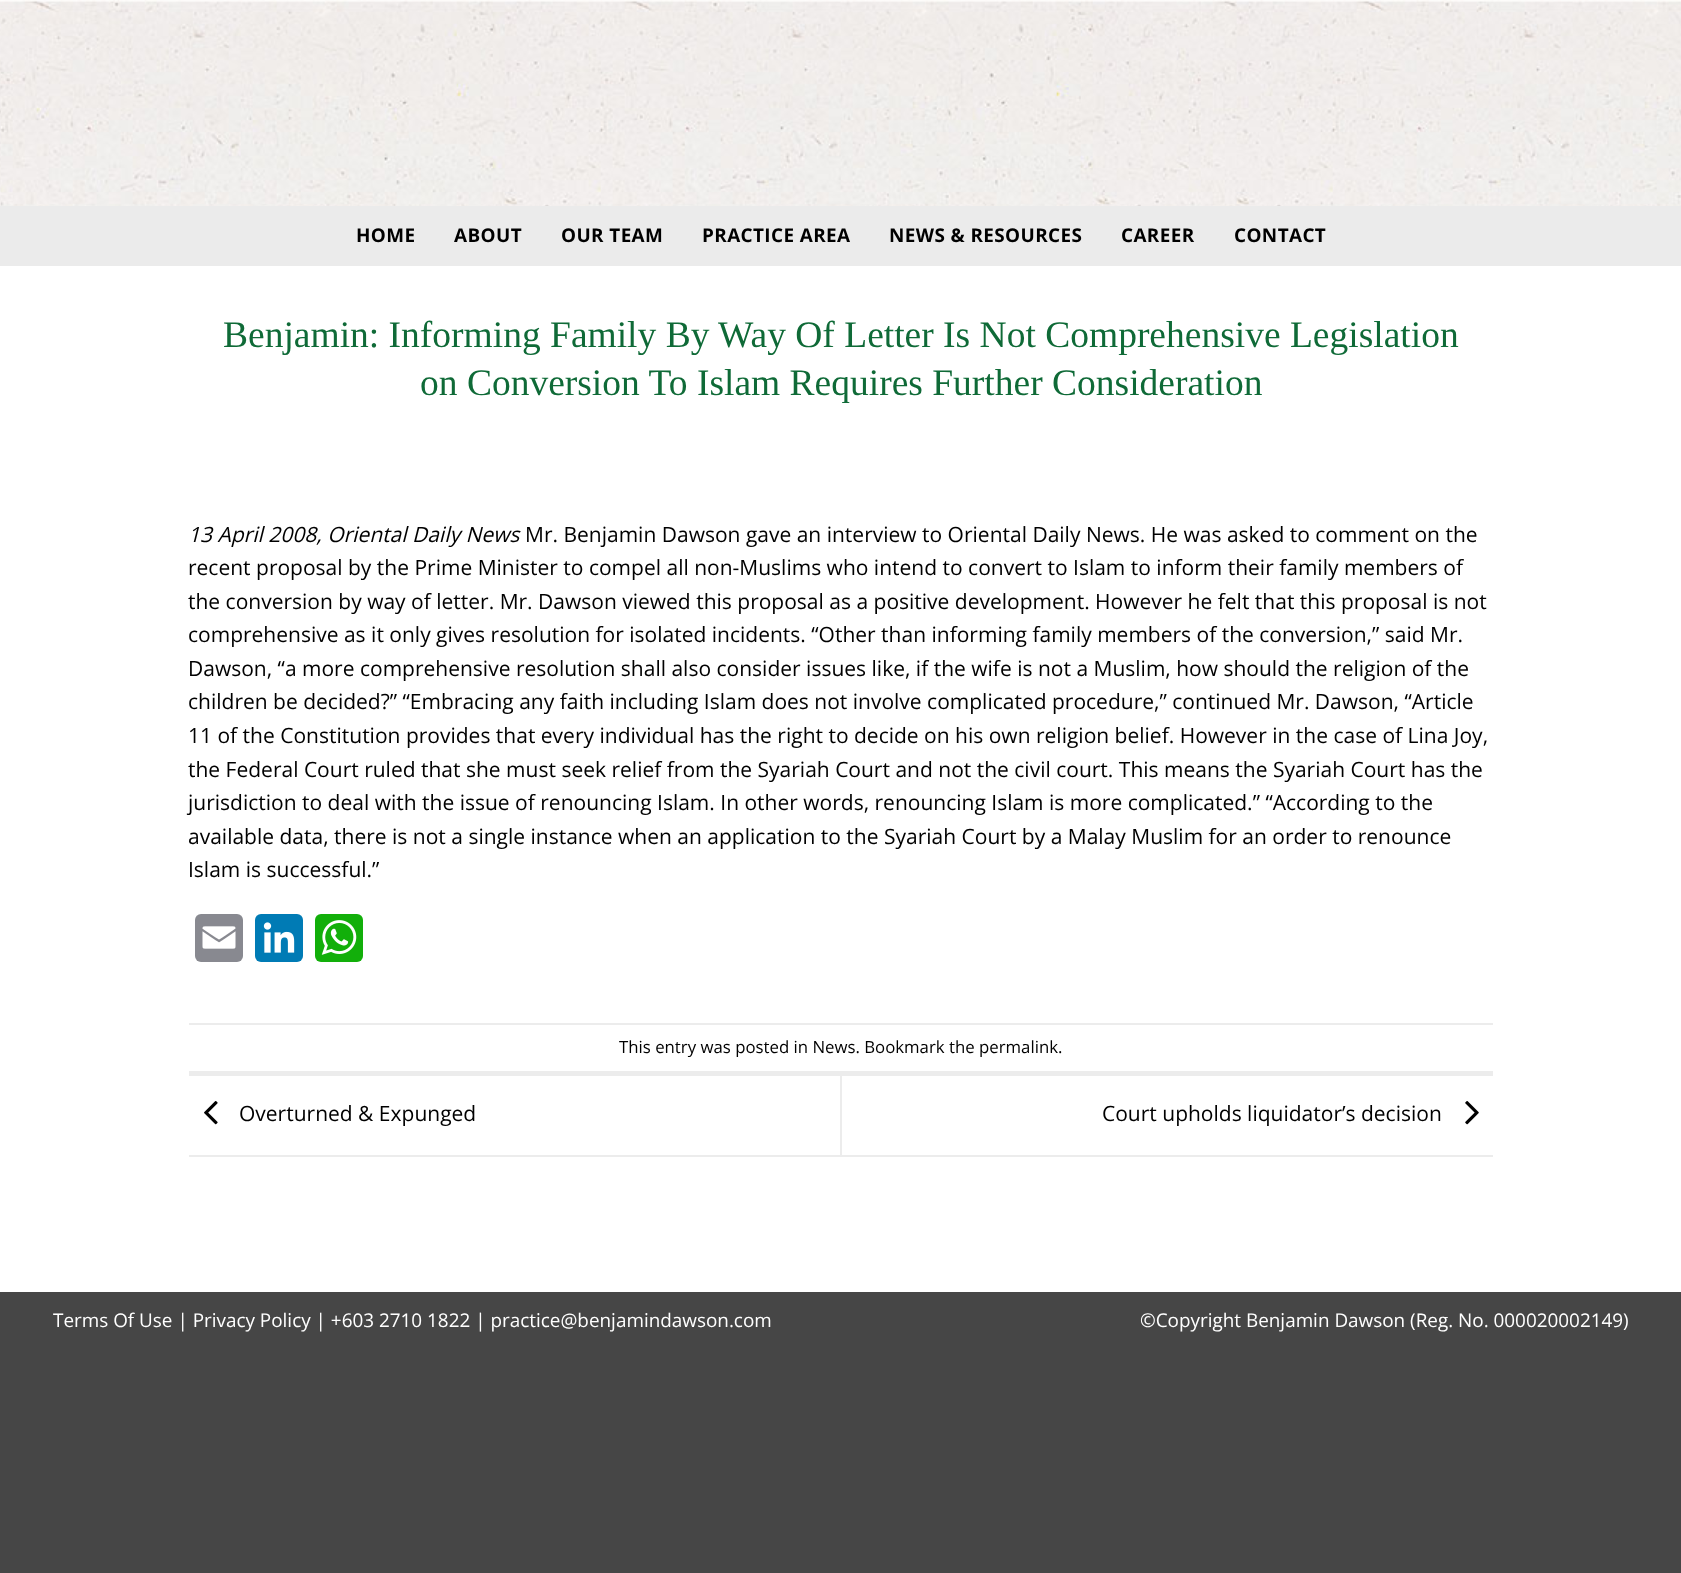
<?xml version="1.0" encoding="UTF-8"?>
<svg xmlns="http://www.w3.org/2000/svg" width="1681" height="1573">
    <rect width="100%" height="100%" fill="#464646"/>
    <rect x="0" y="266" width="1681" height="1026" fill="#FFFFFF"/>
    <image x="0" y="0" width="1681" height="206" href="img_01.png"/>
    <rect x="0" y="206" width="1681" height="60" fill="#EBEBEB"/>
    <text x="356" y="242" font-family="Open Sans" font-size="18.9" font-weight="700" letter-spacing="0.4" fill="#000000">HOME</text>
    <text x="454" y="242" font-family="Open Sans" font-size="18.9" font-weight="700" letter-spacing="0.4" fill="#000000">ABOUT</text>
    <text x="561" y="242" font-family="Open Sans" font-size="18.9" font-weight="700" letter-spacing="0.4" fill="#000000">OUR TEAM</text>
    <text x="702" y="242" font-family="Open Sans" font-size="18.9" font-weight="700" letter-spacing="0.4" fill="#000000">PRACTICE AREA</text>
    <text x="889" y="242" font-family="Open Sans" font-size="18.9" font-weight="700" letter-spacing="0.4" fill="#000000">NEWS &amp; RESOURCES</text>
    <text x="1121" y="242" font-family="Open Sans" font-size="18.9" font-weight="700" letter-spacing="0.4" fill="#000000">CAREER</text>
    <text x="1234" y="242" font-family="Open Sans" font-size="18.9" font-weight="700" letter-spacing="0.4" fill="#000000">CONTACT</text>
    <text x="223" y="347" font-family="Liberation Serif" font-size="37.5" fill="#0F6A37">Benjamin: Informing Family By Way Of Letter Is Not Comprehensive Legislation</text>
    <text x="420" y="395" font-family="Liberation Serif" font-size="37.5" fill="#0F6A37">on Conversion To Islam Requires Further Consideration</text>
    <text x="188" y="542" font-family="Open Sans" font-size="21" font-style="italic" fill="#000000">13 April 2008, Oriental Daily News</text>
    <text x="525" y="542" font-family="Open Sans" font-size="21" fill="#000000">Mr. Benjamin Dawson gave an interview to Oriental Daily News. He was asked to comment on the</text>
    <text font-family="Open Sans" font-size="21" fill="#000000">
        <tspan x="188" y="575">recent proposal by the Prime Minister to compel all non-Muslims who intend to convert to Islam to inform their family members of</tspan>
        <tspan x="188" y="609">the conversion by way of letter. Mr. Dawson viewed this proposal as a positive development. However he felt that this proposal is not</tspan>
        <tspan x="188" y="642">comprehensive as it only gives resolution for isolated incidents. “Other than informing family members of the conversion,” said Mr.</tspan>
        <tspan x="188" y="676">Dawson, “a more comprehensive resolution shall also consider issues like, if the wife is not a Muslim, how should the religion of the</tspan>
        <tspan x="188" y="709">children be decided?” “Embracing any faith including Islam does not involve complicated procedure,” continued Mr. Dawson, “Article</tspan>
        <tspan x="188" y="743">11 of the Constitution provides that every individual has the right to decide on his own religion belief. However in the case of Lina Joy,</tspan>
        <tspan x="188" y="777">the Federal Court ruled that she must seek relief from the Syariah Court and not the civil court. This means the Syariah Court has the</tspan>
        <tspan x="188" y="810">jurisdiction to deal with the issue of renouncing Islam. In other words, renouncing Islam is more complicated.” “According to the</tspan>
        <tspan x="188" y="844">available data, there is not a single instance when an application to the Syariah Court by a Malay Muslim for an order to renounce</tspan>
        <tspan x="188" y="877">Islam is successful.”</tspan>
    </text>
    <rect x="195" y="914" width="48" height="48" rx="6" fill="#888990"/>
    <image x="202" y="926" width="34" height="23" href="img_02.png"/>
    <rect x="255" y="914" width="48" height="48" rx="6" fill="#007BB5"/>
    <image x="263" y="922" width="32" height="31" href="img_03.png"/>
    <rect x="315" y="914" width="48" height="48" rx="6" fill="#12AF0A"/>
    <image x="321" y="920" width="36" height="35" href="img_04.png"/>
    <rect x="189" y="1023" width="1304" height="2" fill="#ECECEC"/>
    <rect x="189" y="1071" width="1304" height="5" fill="#ECECEC"/>
    <text x="619" y="1053" font-family="Open Sans" font-size="16.8" fill="#000000">This entry was posted in News. Bookmark the permalink.</text>
    <rect x="189" y="1155" width="1304" height="2" fill="#ECECEC"/>
    <image x="204" y="1101" width="14" height="24" href="img_05.png"/>
    <text x="239" y="1121" font-family="Open Sans" font-size="21" fill="#000000">Overturned &amp; Expunged</text>
    <rect x="840" y="1076" width="2" height="79" fill="#ECECEC"/>
    <text x="1102" y="1121" font-family="Open Sans" font-size="21" fill="#000000">Court upholds liquidator’s decision</text>
    <image x="1465" y="1101" width="14" height="24" href="img_06.png"/>
    <text x="53" y="1327" font-family="Open Sans" font-size="18.9" fill="#FFFFFF">Terms Of Use | Privacy Policy | +603 2710 1822 | practice@benjamindawson.com</text>
    <text x="1140" y="1327" font-family="Open Sans" font-size="18.9" fill="#FFFFFF">©Copyright Benjamin Dawson (Reg. No. 000020002149)</text>
</svg>
